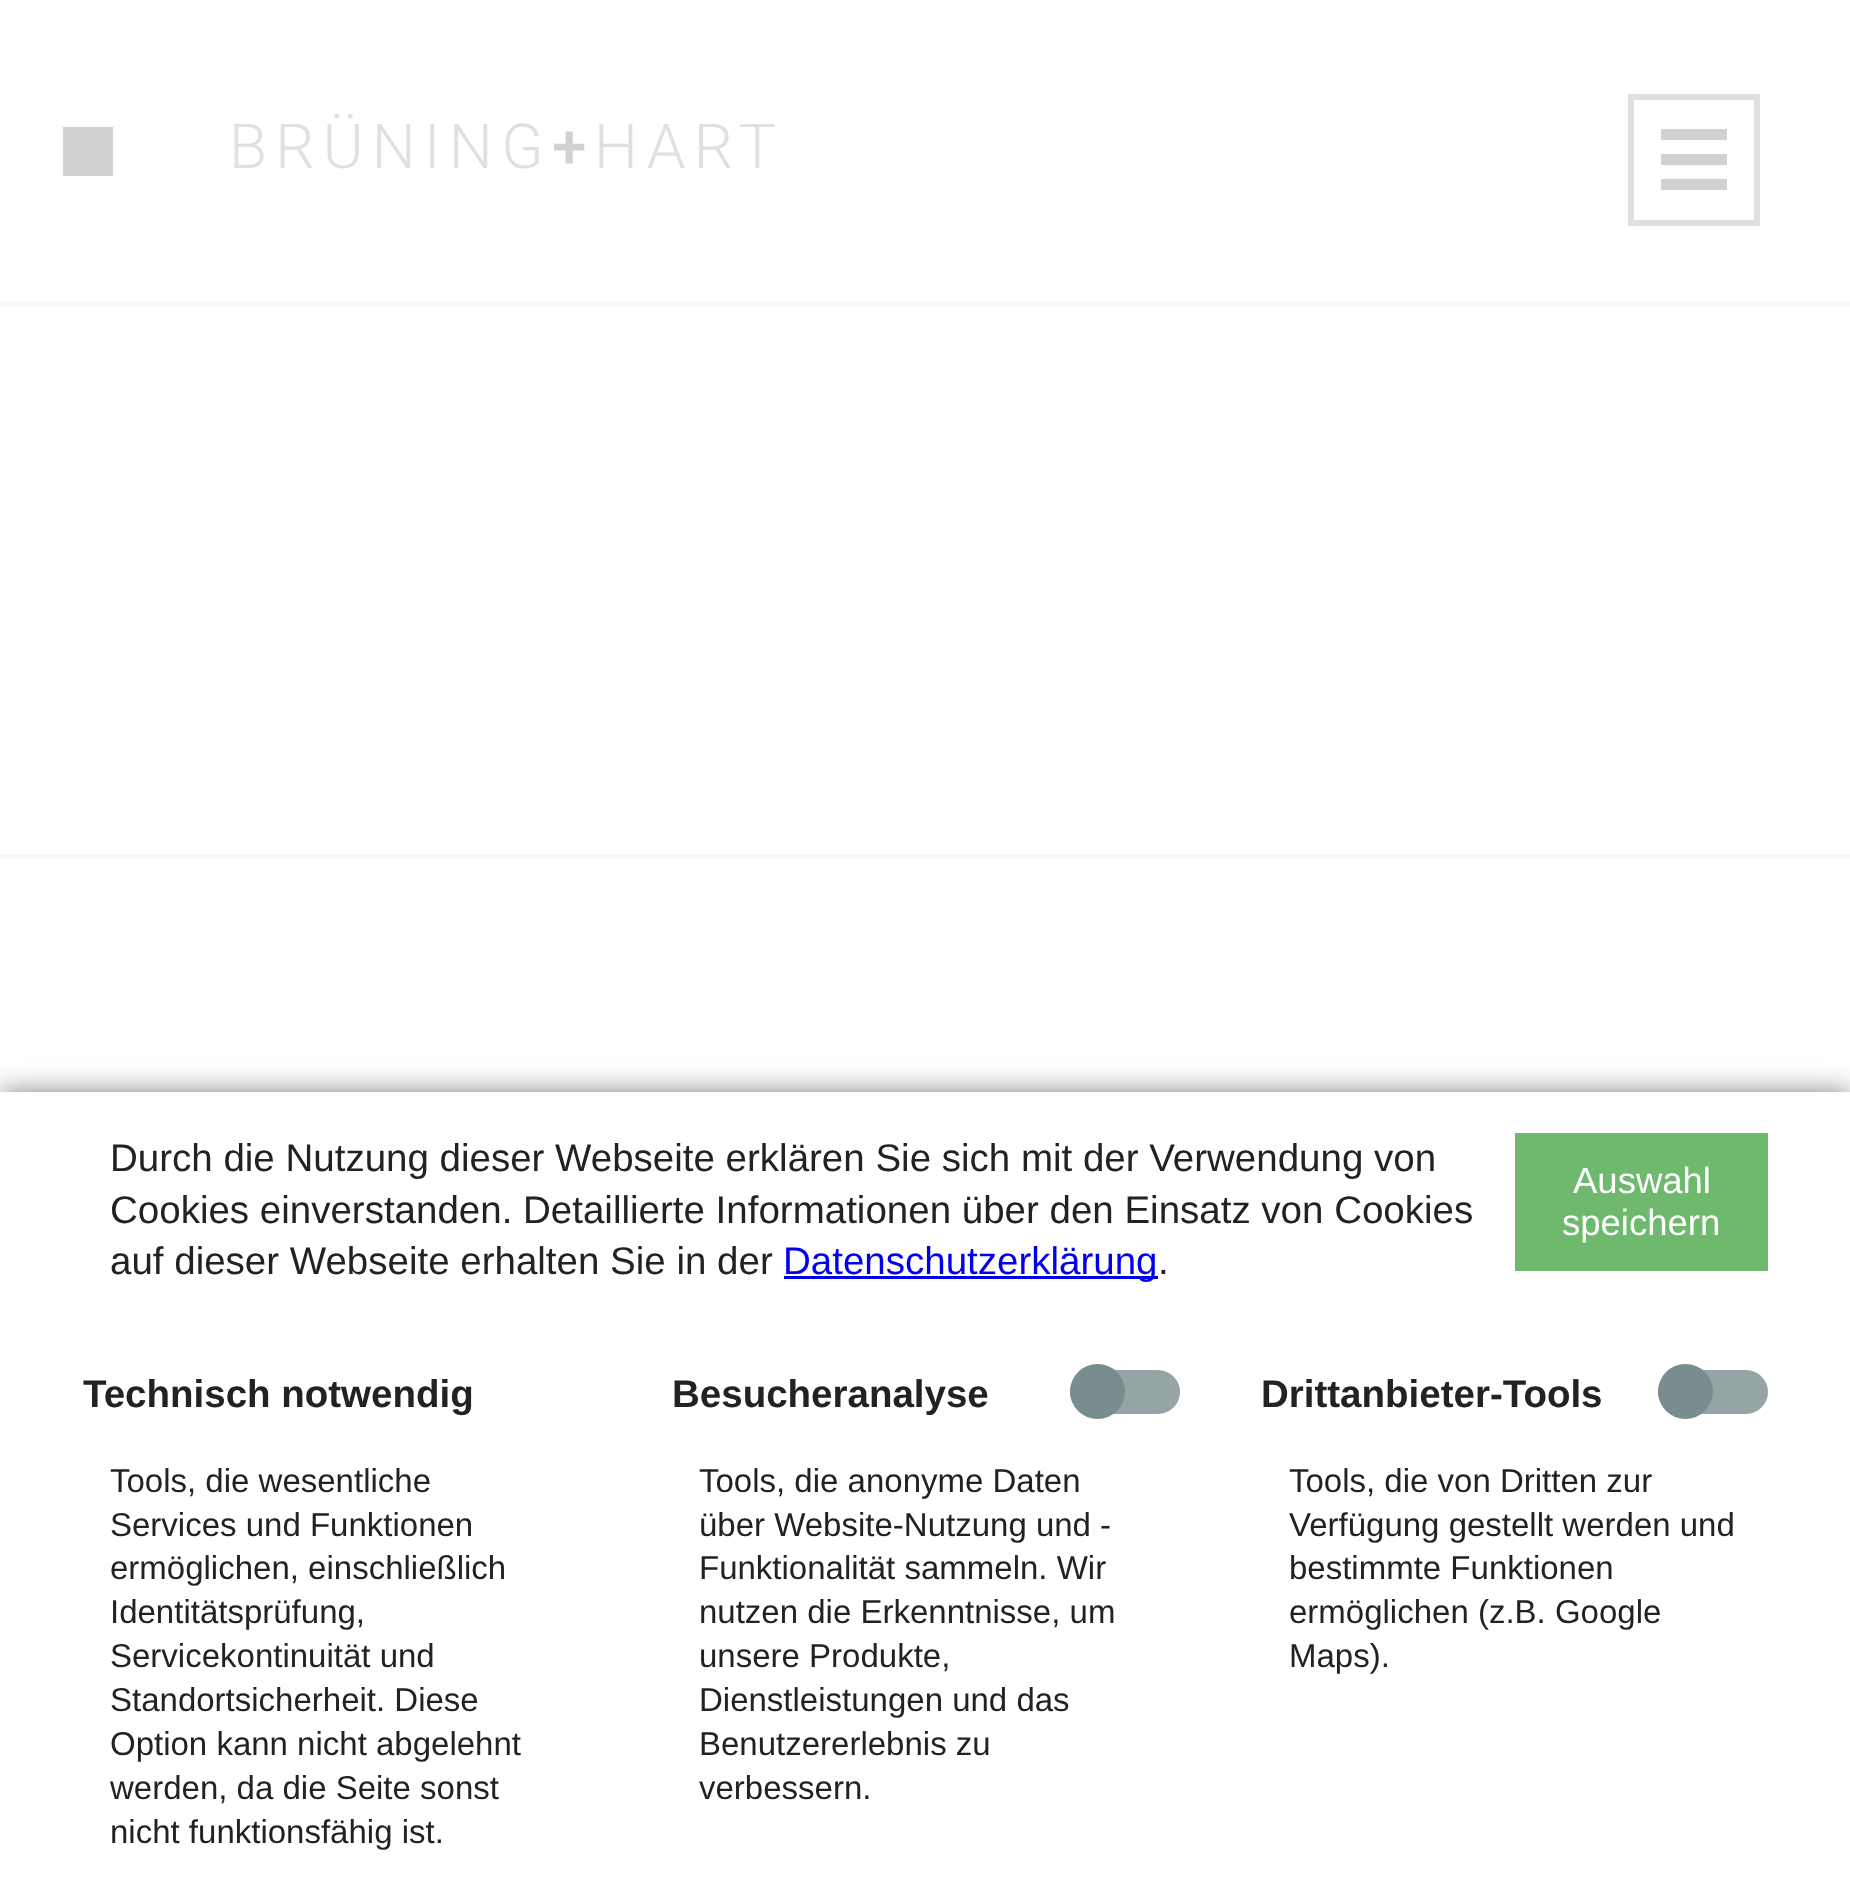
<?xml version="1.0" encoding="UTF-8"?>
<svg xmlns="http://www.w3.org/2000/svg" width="1850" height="1896">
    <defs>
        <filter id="blur1" x="-50%" y="-200%" width="200%" height="500%"><feGaussianBlur stdDeviation="14"/></filter>
    </defs>
    <rect width="100%" height="100%" fill="#FFFFFF"/>
    <rect x="0" y="302" width="1850" height="4" fill="#F7F7F7"/>
    <rect x="63" y="127" width="50" height="49" fill="#D1D1D1"/>
    <text x="229" y="168" font-family="Roboto" font-size="62" font-weight="300" letter-spacing="8.25" fill="#E0E0E0">BRÜNING</text>
    <text x="552" y="168" font-family="Roboto" font-size="62" font-weight="500" letter-spacing="8.25" fill="#D1D1D1">+</text>
    <text x="594" y="168" font-family="Roboto" font-size="62" font-weight="300" letter-spacing="8.25" fill="#E0E0E0">HART</text>
    <rect x="1631" y="97" width="126" height="126" fill="none" stroke="#E0E0E0" stroke-width="6"/>
    <rect x="1661" y="154" width="66" height="11" fill="#D1D1D1"/>
    <rect x="1661" y="129" width="66" height="11" fill="#D1D1D1"/>
    <rect x="1661" y="179" width="66" height="11" fill="#D1D1D1"/>
    <rect x="0" y="855" width="1850" height="3" fill="#F7F7F7"/>
    <rect x="0" y="1092" width="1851" height="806" fill="#000000" fill-opacity="0.5" filter="url(#blur1)"/>
    <rect x="0" y="1092" width="1850" height="804" fill="#FFFFFF"/>
    <text font-family="Liberation Sans" font-size="38.5" fill="#222222">
        <tspan x="110" y="1171">Durch die Nutzung dieser Webseite erklären Sie sich mit der Verwendung von</tspan>
        <tspan x="110" y="1223">Cookies einverstanden. Detaillierte Informationen über den Einsatz von Cookies</tspan>
        <tspan x="110" y="1274">auf dieser Webseite erhalten Sie in der</tspan>
    </text>
    <rect x="784" y="1276" width="374" height="3" fill="#0000EE"/>
    <text x="783" y="1274" font-family="Liberation Sans" font-size="38.5" fill="#0000EE">Datenschutzerklärung</text>
    <text x="1158" y="1274" font-family="Liberation Sans" font-size="38.5" fill="#222222">.</text>
    <rect x="1515" y="1133" width="253" height="138" fill="#6EB96E"/>
    <text x="1573" y="1193" font-family="Liberation Sans" font-size="36.5" fill="#FFFFFF">Auswahl</text>
    <text x="1562" y="1235" font-family="Liberation Sans" font-size="36.5" fill="#FFFFFF">speichern</text>
    <text x="83" y="1407" font-family="Liberation Sans" font-size="38.5" font-weight="700" fill="#222222">Technisch notwendig</text>
    <text font-family="Liberation Sans" font-size="33" fill="#222222">
        <tspan x="110" y="1492">Tools, die wesentliche</tspan>
        <tspan x="110" y="1536">Services und Funktionen</tspan>
        <tspan x="110" y="1579">ermöglichen, einschließlich</tspan>
        <tspan x="110" y="1623">Identitätsprüfung,</tspan>
        <tspan x="110" y="1667">Servicekontinuität und</tspan>
        <tspan x="110" y="1711">Standortsicherheit. Diese</tspan>
        <tspan x="110" y="1755">Option kann nicht abgelehnt</tspan>
        <tspan x="110" y="1799">werden, da die Seite sonst</tspan>
        <tspan x="110" y="1843">nicht funktionsfähig ist.</tspan>
    </text>
    <text x="672" y="1407" font-family="Liberation Sans" font-size="38.5" font-weight="700" fill="#222222">Besucheranalyse</text>
    <rect x="1070" y="1370" width="110" height="44" rx="22" fill="#95A5A6"/>
    <circle cx="1097.5" cy="1391.5" r="27.5" fill="#798D8F"/>
    <text font-family="Liberation Sans" font-size="33" fill="#222222">
        <tspan x="699" y="1492">Tools, die anonyme Daten</tspan>
        <tspan x="699" y="1536">über Website-Nutzung und -</tspan>
        <tspan x="699" y="1579">Funktionalität sammeln. Wir</tspan>
        <tspan x="699" y="1623">nutzen die Erkenntnisse, um</tspan>
        <tspan x="699" y="1667">unsere Produkte,</tspan>
        <tspan x="699" y="1711">Dienstleistungen und das</tspan>
        <tspan x="699" y="1755">Benutzererlebnis zu</tspan>
        <tspan x="699" y="1799">verbessern.</tspan>
    </text>
    <text x="1261" y="1407" font-family="Liberation Sans" font-size="38.5" font-weight="700" fill="#222222">Drittanbieter-Tools</text>
    <rect x="1658" y="1370" width="110" height="44" rx="22" fill="#95A5A6"/>
    <circle cx="1685.5" cy="1391.5" r="27.5" fill="#798D8F"/>
    <text font-family="Liberation Sans" font-size="33" fill="#222222">
        <tspan x="1289" y="1492">Tools, die von Dritten zur</tspan>
        <tspan x="1289" y="1536">Verfügung gestellt werden und</tspan>
        <tspan x="1289" y="1579">bestimmte Funktionen</tspan>
        <tspan x="1289" y="1623">ermöglichen (z.B. Google</tspan>
        <tspan x="1289" y="1667">Maps).</tspan>
    </text>
</svg>
